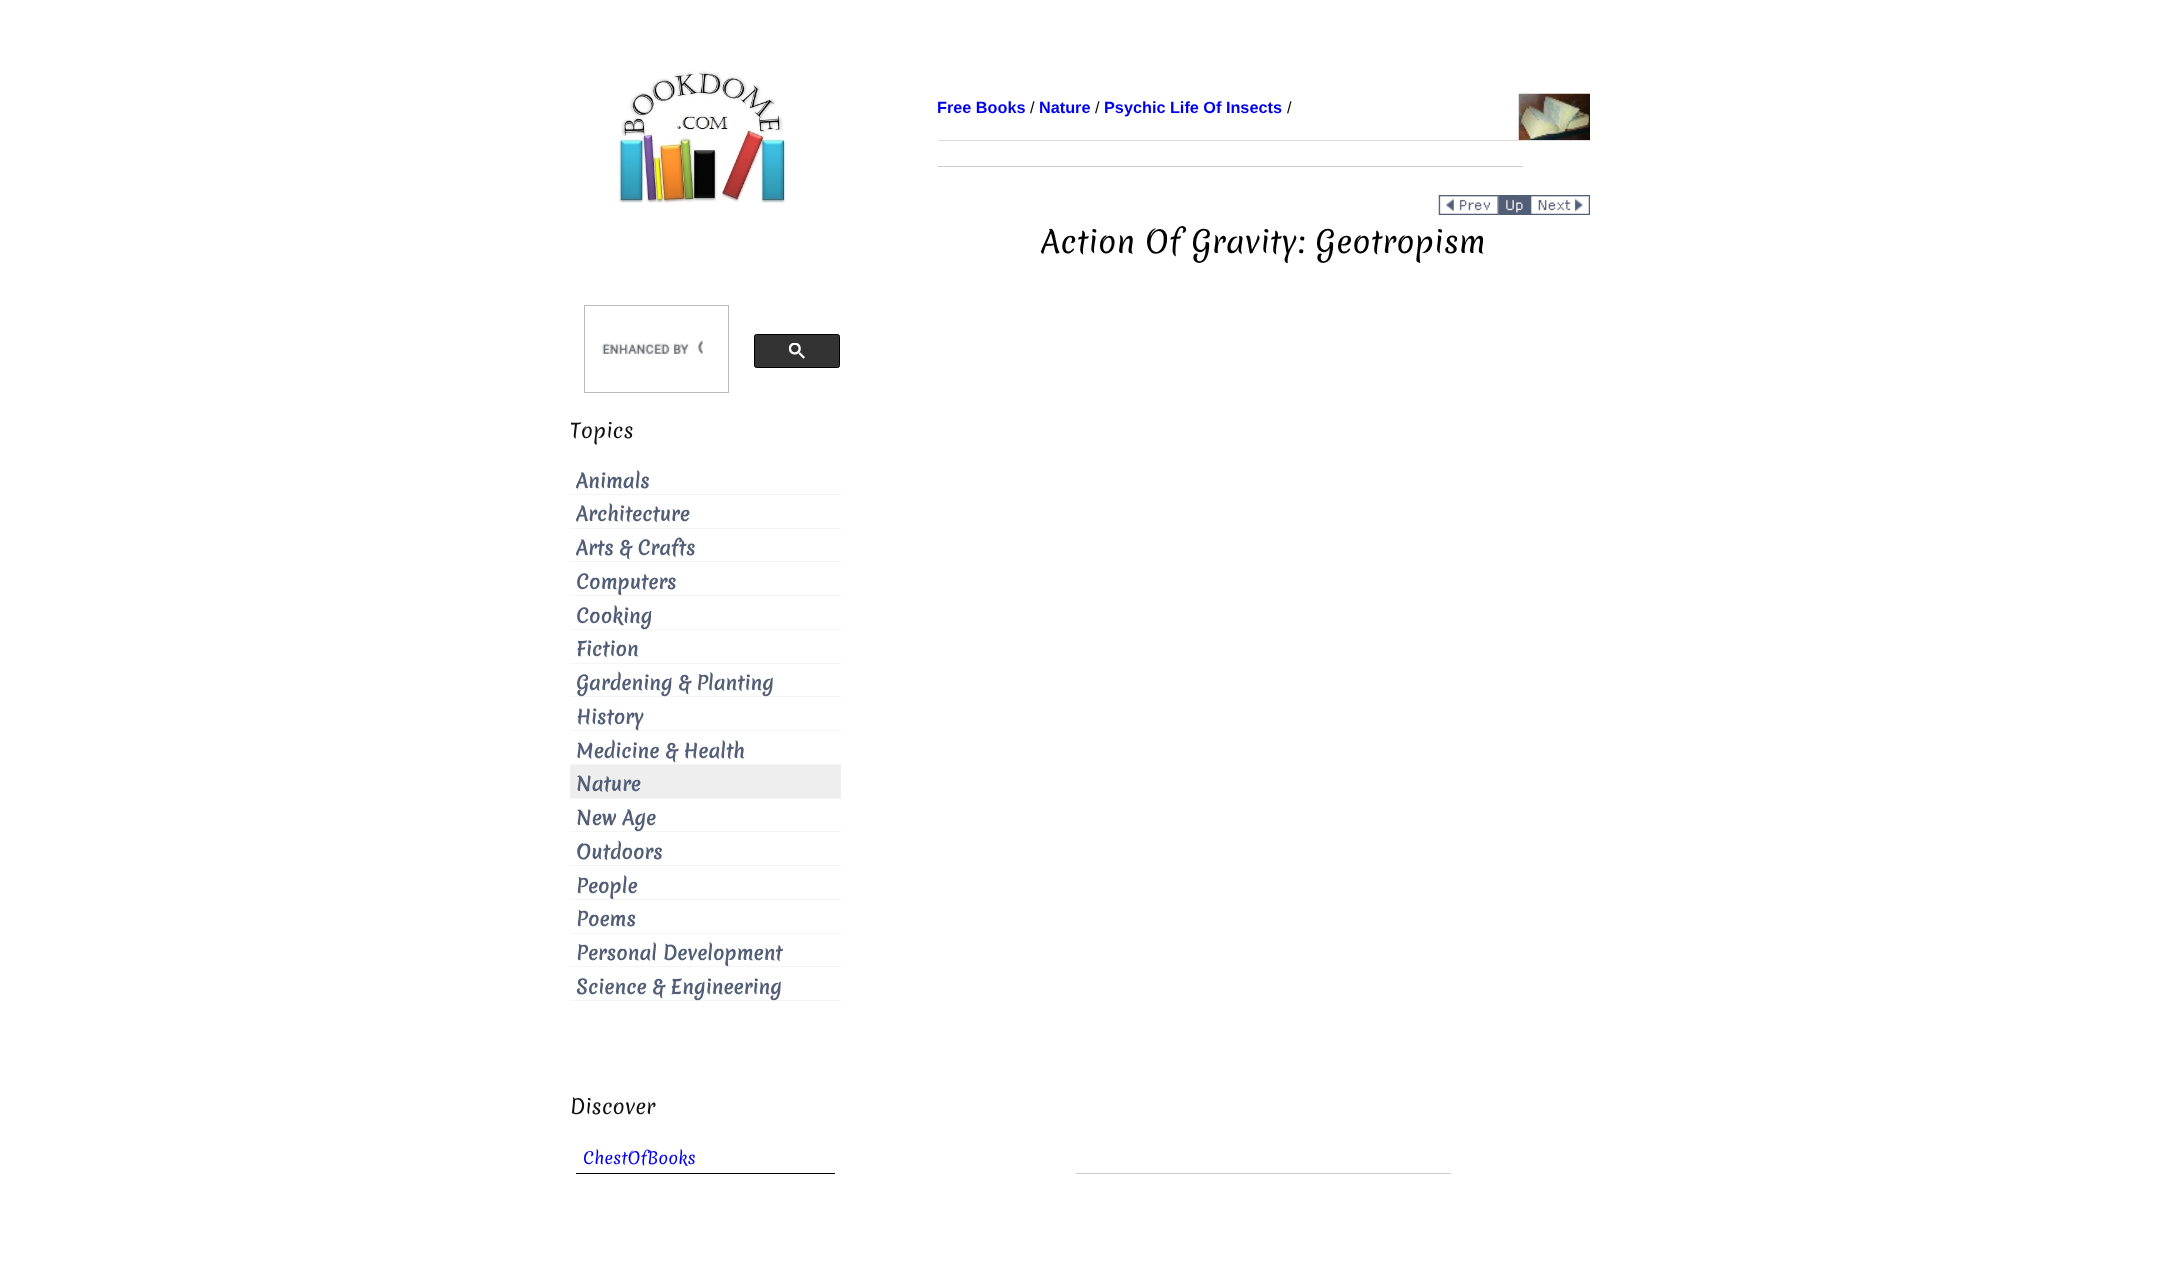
<?xml version="1.0" encoding="UTF-8"?>
<svg xmlns="http://www.w3.org/2000/svg" width="2180" height="1270">
    <rect width="100%" height="100%" fill="#FFFFFF"/>
    <text x="937" y="113" font-family="Liberation Sans" font-size="16.25" font-weight="700" fill="#0000EE">Free Books</text>
    <text x="1030" y="113" font-family="Liberation Sans" font-size="16.25" fill="#000000">/</text>
    <text x="1039" y="113" font-family="Liberation Sans" font-size="16.25" font-weight="700" fill="#0000EE">Nature</text>
    <text x="1095" y="113" font-family="Liberation Sans" font-size="16.25" fill="#000000">/</text>
    <text x="1104" y="113" font-family="Liberation Sans" font-size="16.25" font-weight="700" fill="#0000EE">Psychic Life Of Insects</text>
    <text x="1287" y="113" font-family="Liberation Sans" font-size="16.25" fill="#000000">/</text>
    <image x="1518" y="93" width="72" height="47" href="img_01.png"/>
    <rect x="938" y="140" width="652" height="1" fill="#DDDDDD"/>
    <rect x="938" y="166" width="585" height="1" fill="#CCCCCC"/>
    <image x="1438" y="195" width="61" height="20" href="img_02.png"/>
    <image x="1498" y="195" width="32" height="20" href="img_03.png"/>
    <image x="1530" y="195" width="60" height="20" href="img_04.png"/>
    <text x="1041" y="253" font-family="Merienda" font-size="30" fill="#000000">Action Of Gravity: Geotropism</text>
    <rect x="1076" y="1173" width="375" height="1" fill="#CCCCCC"/>
    <image x="618" y="71" width="168" height="132" href="img_05.png"/>
    <rect x="584.5" y="305.5" width="144" height="87" fill="none" stroke="#BBBBBB"/>
    <image x="602" y="340" width="101" height="14" href="img_06.png"/>
    <rect x="754.5" y="334.5" width="85" height="33" rx="2" fill="#333333" stroke="#000000"/>
    <image x="789" y="343" width="16" height="16" href="img_07.png"/>
    <text x="570" y="438" font-family="Merienda" font-size="20" fill="#111111">Topics</text>
    <rect x="570" y="494" width="271" height="1" fill="#F5F5F5"/>
    <text x="576" y="488" font-family="Merienda" font-size="18.75" font-weight="700" fill="#525D76">Animals</text>
    <rect x="570" y="528" width="271" height="1" fill="#F5F5F5"/>
    <text x="576" y="521" font-family="Merienda" font-size="18.75" font-weight="700" fill="#525D76">Architecture</text>
    <rect x="570" y="561" width="271" height="1" fill="#F5F5F5"/>
    <text x="576" y="555" font-family="Merienda" font-size="18.75" font-weight="700" fill="#525D76">Arts &amp; Crafts</text>
    <rect x="570" y="595" width="271" height="1" fill="#F5F5F5"/>
    <text x="576" y="589" font-family="Merienda" font-size="18.75" font-weight="700" fill="#525D76">Computers</text>
    <rect x="570" y="629" width="271" height="1" fill="#F5F5F5"/>
    <text x="576" y="623" font-family="Merienda" font-size="18.75" font-weight="700" fill="#525D76">Cooking</text>
    <rect x="570" y="663" width="271" height="1" fill="#F5F5F5"/>
    <text x="576" y="656" font-family="Merienda" font-size="18.75" font-weight="700" fill="#525D76">Fiction</text>
    <rect x="570" y="696" width="271" height="1" fill="#F5F5F5"/>
    <text x="576" y="690" font-family="Merienda" font-size="18.75" font-weight="700" fill="#525D76">Gardening &amp; Planting</text>
    <rect x="570" y="730" width="271" height="1" fill="#F5F5F5"/>
    <text x="576" y="724" font-family="Merienda" font-size="18.75" font-weight="700" fill="#525D76">History</text>
    <rect x="570" y="764" width="271" height="1" fill="#F5F5F5"/>
    <text x="576" y="758" font-family="Merienda" font-size="18.75" font-weight="700" fill="#525D76">Medicine &amp; Health</text>
    <rect x="570" y="765" width="271" height="33" fill="#EEEEEE"/>
    <rect x="570" y="798" width="271" height="1" fill="#F5F5F5"/>
    <text x="576" y="791" font-family="Merienda" font-size="18.75" font-weight="700" fill="#525D76">Nature</text>
    <rect x="570" y="831" width="271" height="1" fill="#F5F5F5"/>
    <text x="576" y="825" font-family="Merienda" font-size="18.75" font-weight="700" fill="#525D76">New Age</text>
    <rect x="570" y="865" width="271" height="1" fill="#F5F5F5"/>
    <text x="576" y="859" font-family="Merienda" font-size="18.75" font-weight="700" fill="#525D76">Outdoors</text>
    <rect x="570" y="899" width="271" height="1" fill="#F5F5F5"/>
    <text x="576" y="893" font-family="Merienda" font-size="18.75" font-weight="700" fill="#525D76">People</text>
    <rect x="570" y="933" width="271" height="1" fill="#F5F5F5"/>
    <text x="576" y="926" font-family="Merienda" font-size="18.75" font-weight="700" fill="#525D76">Poems</text>
    <rect x="570" y="966" width="271" height="1" fill="#F5F5F5"/>
    <text x="576" y="960" font-family="Merienda" font-size="18.75" font-weight="700" fill="#525D76">Personal Development</text>
    <rect x="570" y="1000" width="271" height="1" fill="#F5F5F5"/>
    <text x="576" y="994" font-family="Merienda" font-size="18.75" font-weight="700" fill="#525D76">Science &amp; Engineering</text>
    <text x="570" y="1114" font-family="Merienda" font-size="20" fill="#111111">Discover</text>
    <rect x="576" y="1173" width="259" height="1" fill="#000000"/>
    <text x="583" y="1164" font-family="Merienda" font-size="16.25" fill="#0000EE">ChestOfBooks</text>
</svg>
